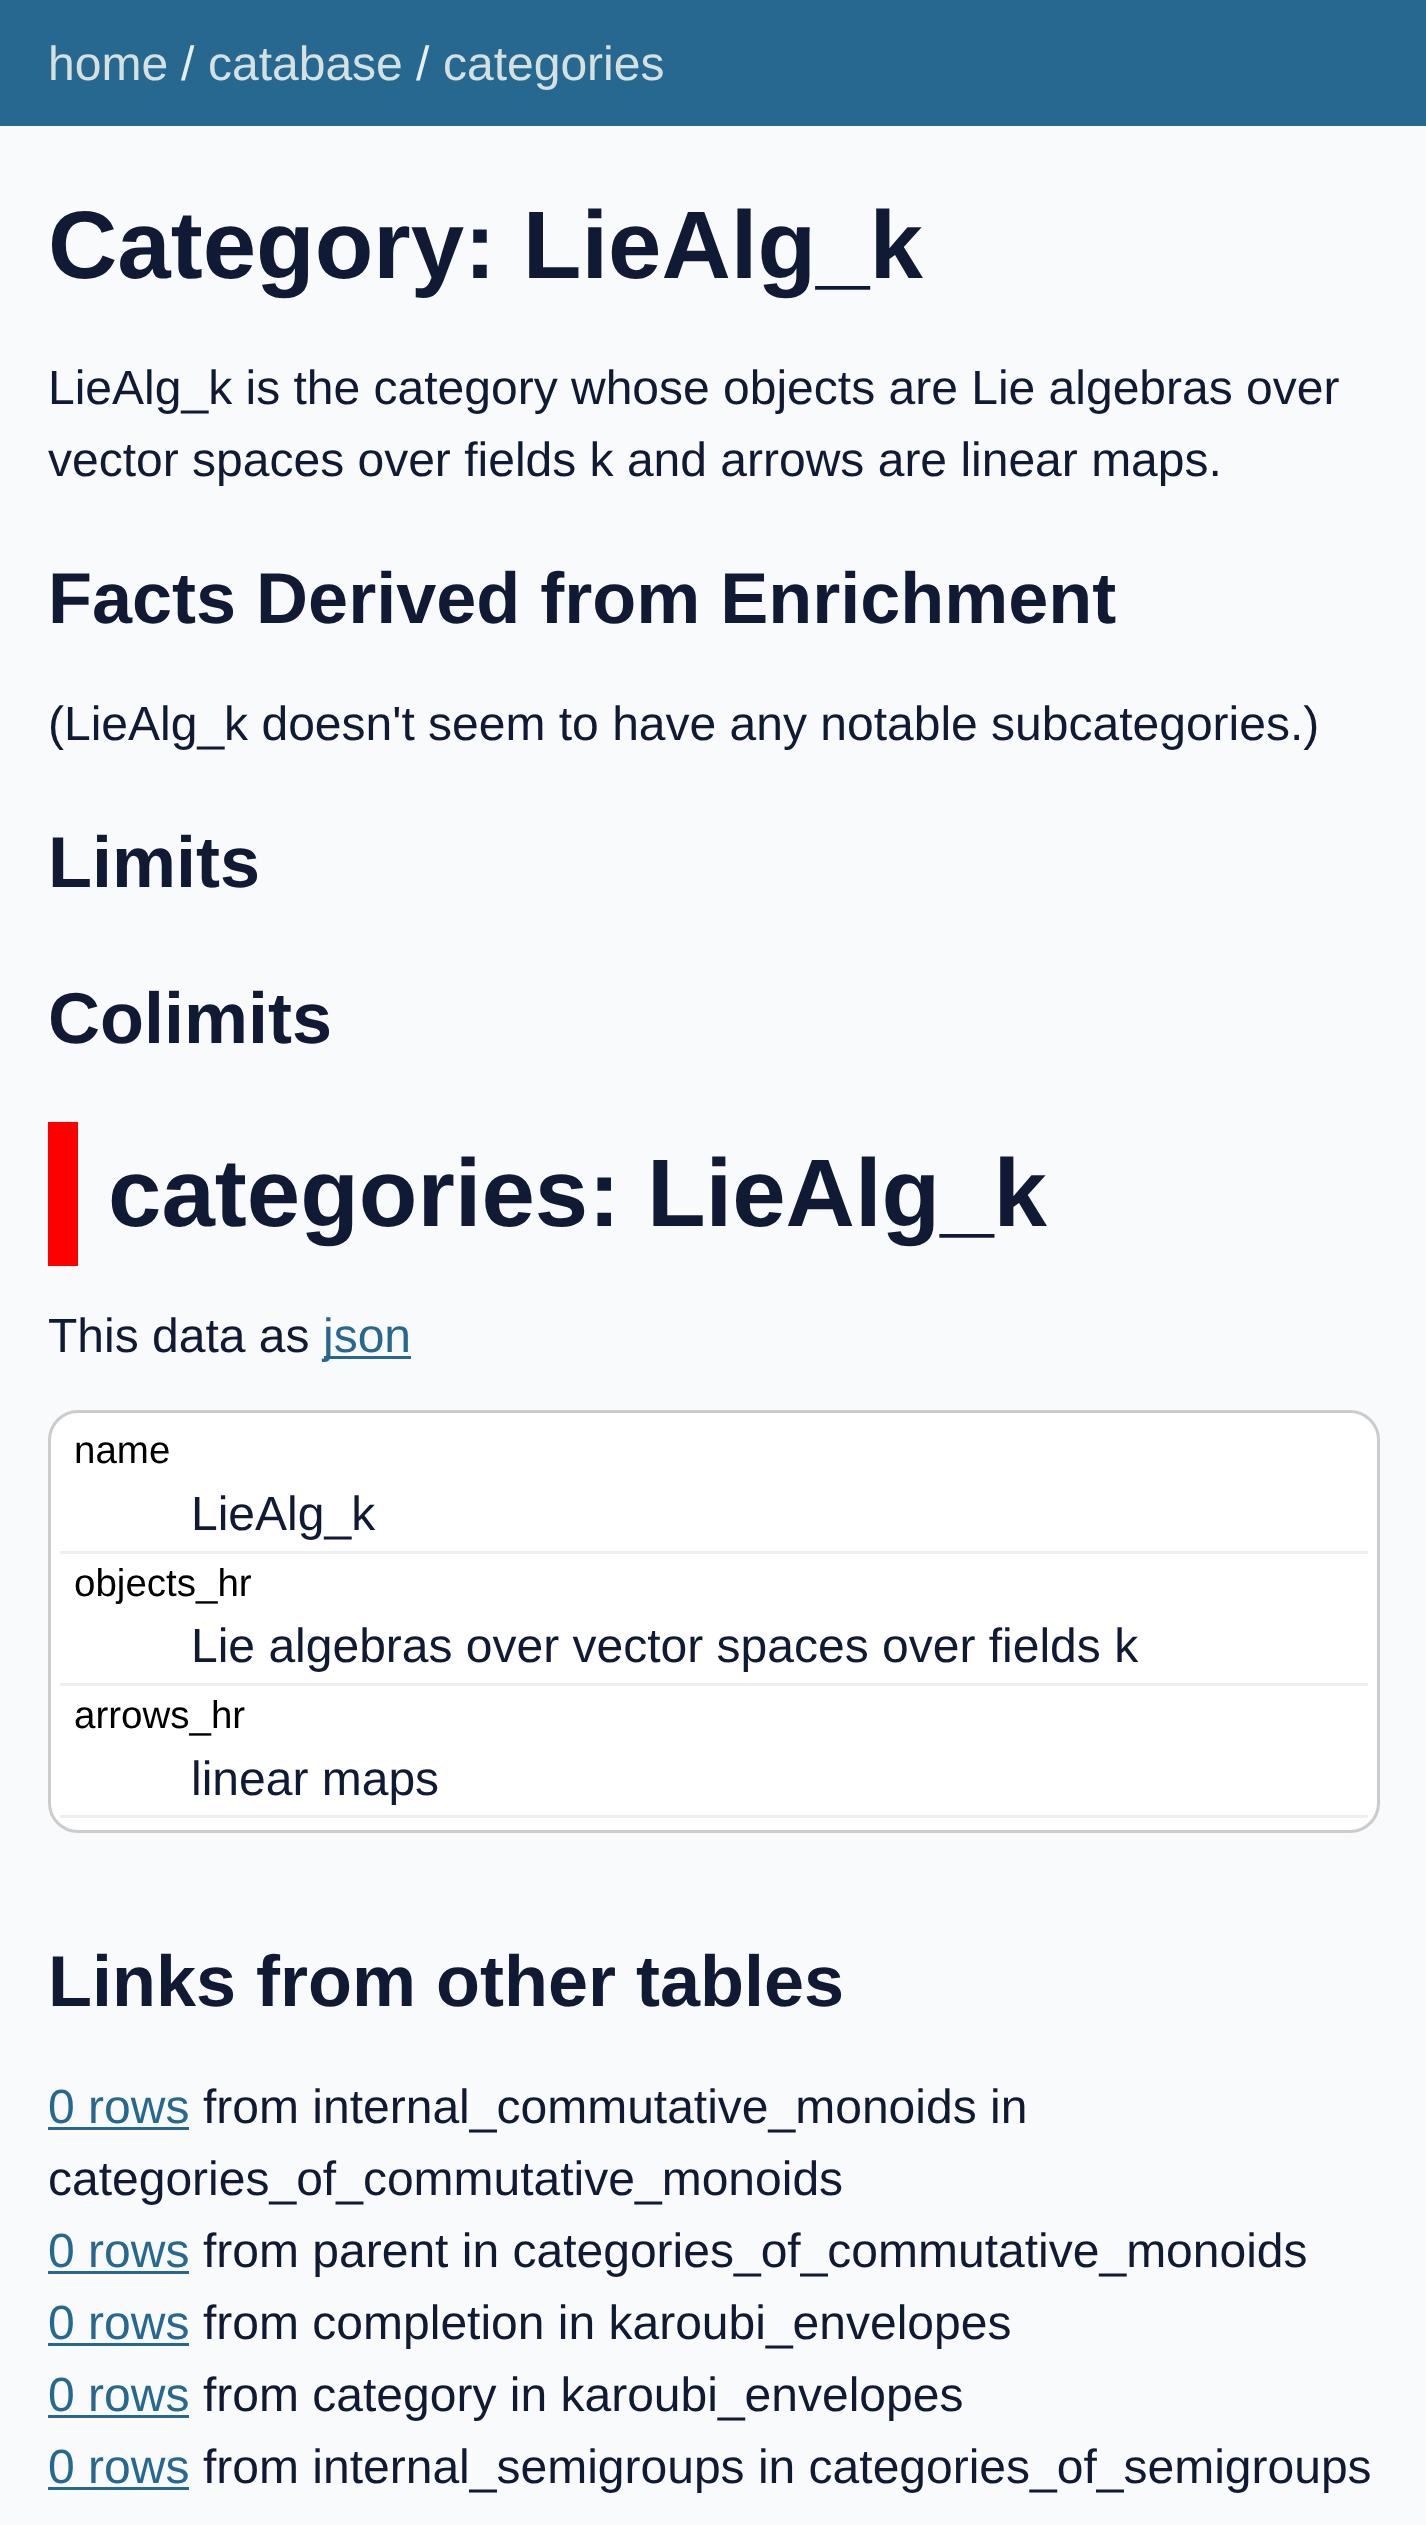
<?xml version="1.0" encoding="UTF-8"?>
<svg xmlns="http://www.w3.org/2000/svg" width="1426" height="2525">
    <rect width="100%" height="100%" fill="#F8FAFB"/>
    <rect x="0" y="0" width="1426" height="126" fill="#276890"/>
    <text x="48" y="80" font-family="Liberation Sans" font-size="48" fill="#D4E1E0">home</text>
    <text x="181" y="80" font-family="Liberation Sans" font-size="48" fill="#E9F0EA">/</text>
    <text x="208" y="80" font-family="Liberation Sans" font-size="48" fill="#D4E1E0">catabase</text>
    <text x="416" y="80" font-family="Liberation Sans" font-size="48" fill="#E9F0EA">/</text>
    <text x="443" y="80" font-family="Liberation Sans" font-size="48" fill="#D4E1E0">categories</text>
    <text x="48" y="278" font-family="Liberation Sans" font-size="96" font-weight="700" fill="#111A35">Category: LieAlg_k</text>
    <text font-family="Liberation Sans" font-size="48" fill="#111A35">
        <tspan x="48" y="404">LieAlg_k is the category whose objects are Lie algebras over</tspan>
        <tspan x="48" y="476">vector spaces over fields k and arrows are linear maps.</tspan>
    </text>
    <text x="48" y="623" font-family="Liberation Sans" font-size="72" font-weight="700" fill="#111A35">Facts Derived from Enrichment</text>
    <text x="48" y="740" font-family="Liberation Sans" font-size="48" fill="#111A35">(LieAlg_k doesn't seem to have any notable subcategories.)</text>
    <text x="48" y="887" font-family="Liberation Sans" font-size="72" font-weight="700" fill="#111A35">Limits</text>
    <text x="48" y="1043" font-family="Liberation Sans" font-size="72" font-weight="700" fill="#111A35">Colimits</text>
    <rect x="48" y="1122" width="30" height="144" fill="#FF0000"/>
    <text x="108" y="1226" font-family="Liberation Sans" font-size="96" font-weight="700" fill="#111A35">categories: LieAlg_k</text>
    <text x="48" y="1352" font-family="Liberation Sans" font-size="48" fill="#111A35">This data as</text>
    <rect x="324" y="1356" width="87" height="3" fill="#276890"/>
    <text x="323" y="1352" font-family="Liberation Sans" font-size="48" fill="#276890">json</text>
    <rect x="49.5" y="1411.5" width="1329" height="420" rx="28.5" fill="#FFFFFF" stroke="#CCCCCC" stroke-width="3"/>
    <rect x="60" y="1551" width="1308" height="3" fill="#EEEEEE"/>
    <text x="74" y="1463" font-family="Liberation Sans" font-size="38.5" fill="#000000">name</text>
    <text x="191" y="1530" font-family="Liberation Sans" font-size="48" fill="#111A35">LieAlg_k</text>
    <rect x="60" y="1683" width="1308" height="3" fill="#EEEEEE"/>
    <text x="74" y="1596" font-family="Liberation Sans" font-size="38.5" fill="#000000">objects_hr</text>
    <text x="191" y="1662" font-family="Liberation Sans" font-size="48" fill="#111A35">Lie algebras over vector spaces over fields k</text>
    <rect x="60" y="1815" width="1308" height="3" fill="#EEEEEE"/>
    <text x="74" y="1728" font-family="Liberation Sans" font-size="38.5" fill="#000000">arrows_hr</text>
    <text x="191" y="1795" font-family="Liberation Sans" font-size="48" fill="#111A35">linear maps</text>
    <text x="48" y="2006" font-family="Liberation Sans" font-size="72" font-weight="700" fill="#111A35">Links from other tables</text>
    <text x="48" y="2123" font-family="Liberation Sans" font-size="48" fill="#276890">0 rows</text>
    <rect x="48" y="2127" width="141" height="3" fill="#276890"/>
    <text x="203" y="2123" font-family="Liberation Sans" font-size="48" fill="#111A35">from internal_commutative_monoids in</text>
    <text x="48" y="2195" font-family="Liberation Sans" font-size="48" fill="#111A35">categories_of_commutative_monoids</text>
    <text x="48" y="2267" font-family="Liberation Sans" font-size="48" fill="#276890">0 rows</text>
    <rect x="48" y="2271" width="141" height="3" fill="#276890"/>
    <text x="203" y="2267" font-family="Liberation Sans" font-size="48" fill="#111A35">from parent in categories_of_commutative_monoids</text>
    <text x="48" y="2339" font-family="Liberation Sans" font-size="48" fill="#276890">0 rows</text>
    <rect x="48" y="2343" width="141" height="3" fill="#276890"/>
    <text x="203" y="2339" font-family="Liberation Sans" font-size="48" fill="#111A35">from completion in karoubi_envelopes</text>
    <text x="48" y="2411" font-family="Liberation Sans" font-size="48" fill="#276890">0 rows</text>
    <rect x="48" y="2415" width="141" height="3" fill="#276890"/>
    <text x="203" y="2411" font-family="Liberation Sans" font-size="48" fill="#111A35">from category in karoubi_envelopes</text>
    <text x="48" y="2483" font-family="Liberation Sans" font-size="48" fill="#276890">0 rows</text>
    <rect x="48" y="2487" width="141" height="3" fill="#276890"/>
    <text x="203" y="2483" font-family="Liberation Sans" font-size="48" fill="#111A35">from internal_semigroups in categories_of_semigroups</text>
</svg>
